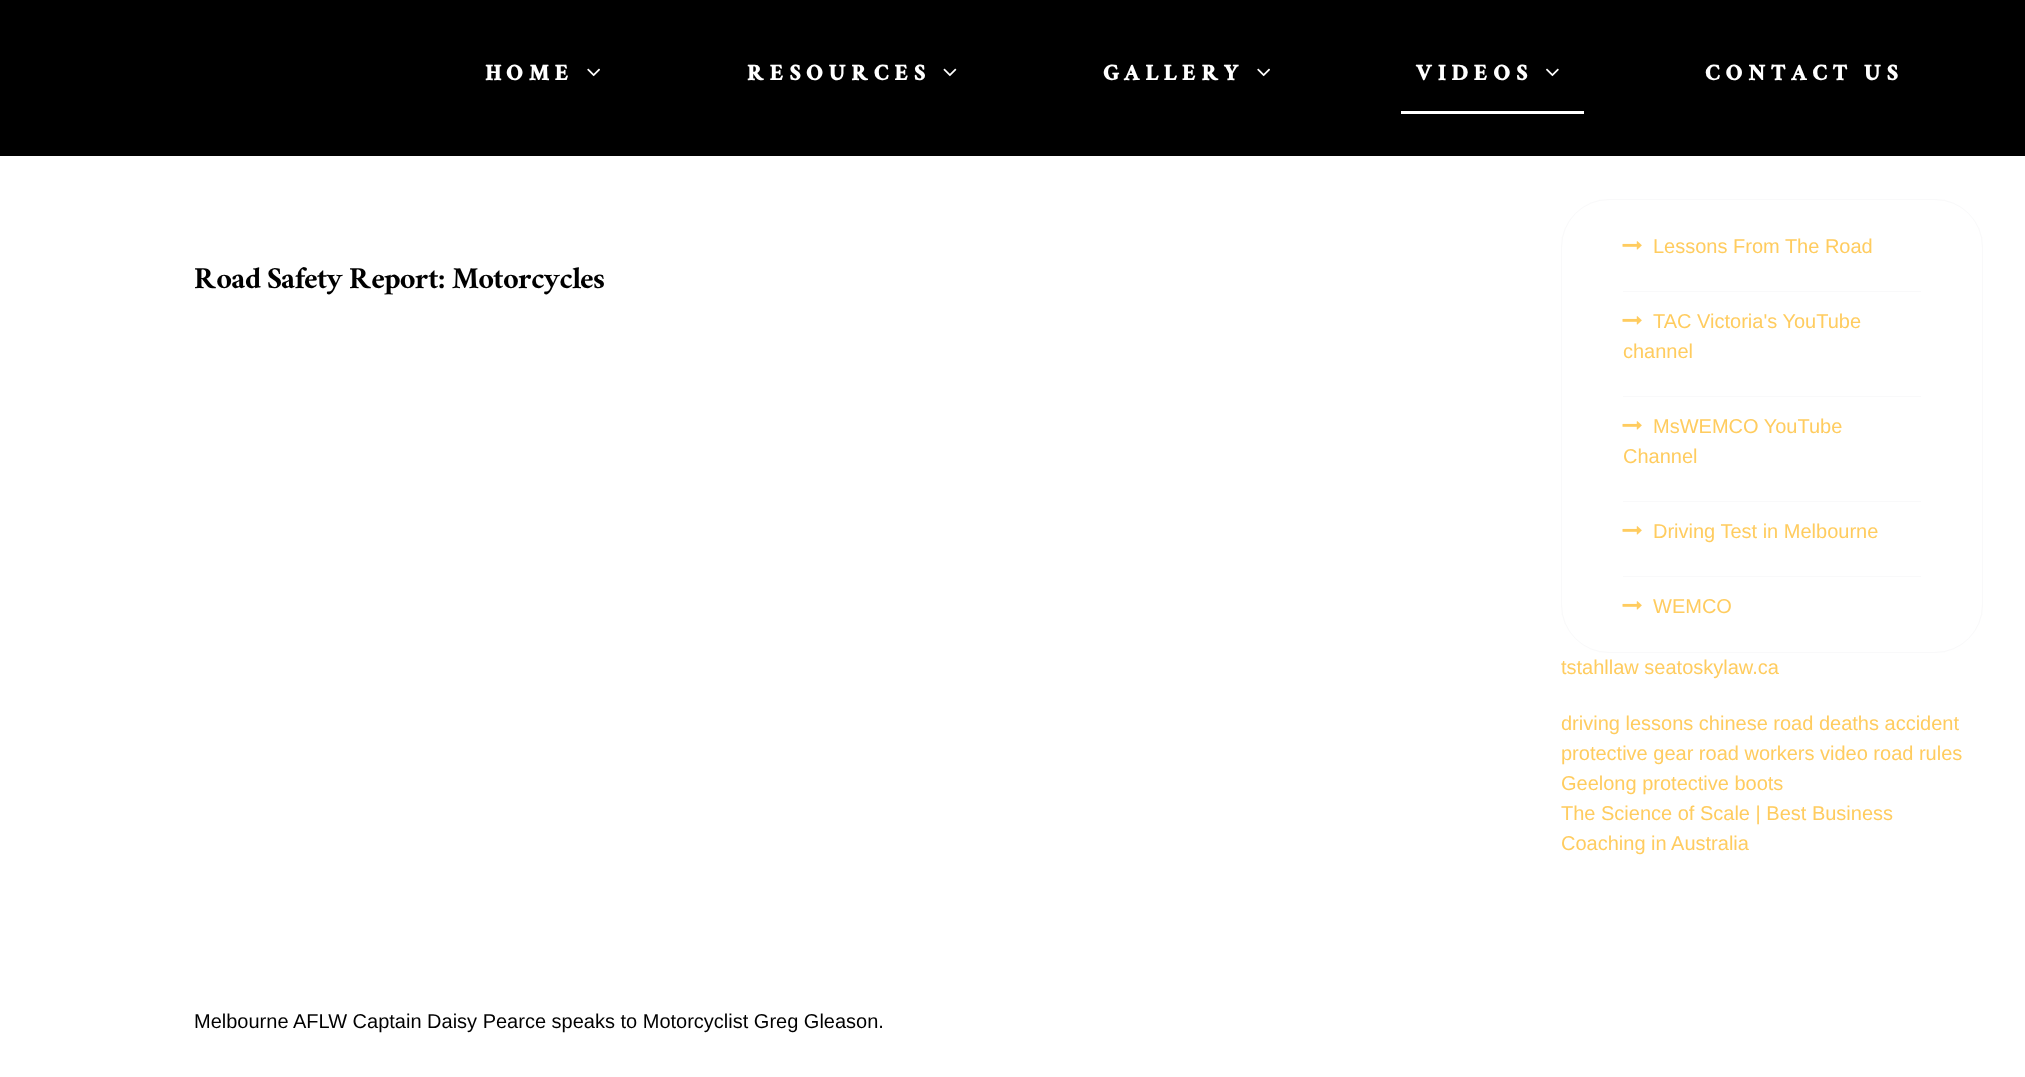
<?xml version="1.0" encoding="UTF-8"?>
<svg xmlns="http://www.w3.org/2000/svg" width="2025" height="1077">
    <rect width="100%" height="100%" fill="#FFFFFF"/>
    <rect x="0" y="0" width="2025" height="156" fill="#000000"/>
    <text x="485" y="80" font-family="Ramaraja" font-size="25" font-weight="700" letter-spacing="6.25" fill="#FFFFFF">HOME</text>
    <image x="587" y="68" width="13" height="9" href="img_01.png"/>
    <text x="747" y="80" font-family="Ramaraja" font-size="25" font-weight="700" letter-spacing="6.25" fill="#FFFFFF">RESOURCES</text>
    <image x="943" y="68" width="14" height="9" href="img_02.png"/>
    <text x="1103" y="80" font-family="Ramaraja" font-size="25" font-weight="700" letter-spacing="6.25" fill="#FFFFFF">GALLERY</text>
    <image x="1257" y="68" width="13" height="9" href="img_01.png"/>
    <rect x="1401" y="111" width="183" height="3" fill="#FFFFFF"/>
    <text x="1416" y="80" font-family="Ramaraja" font-size="25" font-weight="700" letter-spacing="6.25" fill="#FFFFFF">VIDEOS</text>
    <image x="1546" y="68" width="13" height="9" href="img_03.png"/>
    <text x="1705" y="80" font-family="Ramaraja" font-size="25" font-weight="700" letter-spacing="6.25" fill="#FFFFFF">CONTACT US</text>
    <text x="194" y="288" font-family="Ramaraja" font-size="34" fill="#000000">Road Safety Report: Motorcycles</text>
    <text x="194" y="1028" font-family="Liberation Sans" font-size="20" fill="#000000">Melbourne AFLW Captain Daisy Pearce speaks to Motorcyclist Greg Gleason.</text>
    <rect x="1561.5" y="199.5" width="421" height="453" rx="47.5" fill="none" stroke="#F9F9FA"/>
    <rect x="1623" y="291" width="298" height="1" fill="#F9F9FA"/>
    <image x="1622" y="241" width="20" height="9" href="img_04.png"/>
    <text x="1653" y="253" font-family="Liberation Sans" font-size="20" fill="#FFCC5F">Lessons From The Road</text>
    <rect x="1623" y="396" width="298" height="1" fill="#F9F9FA"/>
    <image x="1622" y="316" width="20" height="9" href="img_04.png"/>
    <text x="1653" y="328" font-family="Liberation Sans" font-size="20" fill="#FFCC5F">TAC Victoria's YouTube</text>
    <text x="1623" y="358" font-family="Liberation Sans" font-size="20" fill="#FFCC5F">channel</text>
    <rect x="1623" y="501" width="298" height="1" fill="#F9F9FA"/>
    <image x="1622" y="421" width="20" height="9" href="img_04.png"/>
    <text x="1653" y="433" font-family="Liberation Sans" font-size="20" fill="#FFCC5F">MsWEMCO YouTube</text>
    <text x="1623" y="463" font-family="Liberation Sans" font-size="20" fill="#FFCC5F">Channel</text>
    <rect x="1623" y="576" width="298" height="1" fill="#F9F9FA"/>
    <image x="1622" y="526" width="20" height="9" href="img_04.png"/>
    <text x="1653" y="538" font-family="Liberation Sans" font-size="20" fill="#FFCC5F">Driving Test in Melbourne</text>
    <image x="1622" y="601" width="20" height="9" href="img_04.png"/>
    <text x="1653" y="613" font-family="Liberation Sans" font-size="20" fill="#FFCC5F">WEMCO</text>
    <text x="1561" y="674" font-family="Liberation Sans" font-size="20" fill="#FFCC5F">tstahllaw seatoskylaw.ca</text>
    <text font-family="Liberation Sans" font-size="20" fill="#FFCC5F">
        <tspan x="1561" y="730">driving lessons chinese road deaths accident</tspan>
        <tspan x="1561" y="760">protective gear road workers video road rules</tspan>
        <tspan x="1561" y="790">Geelong protective boots</tspan>
        <tspan x="1561" y="820">The Science of Scale | Best Business</tspan>
        <tspan x="1561" y="850">Coaching in Australia</tspan>
    </text>
</svg>
